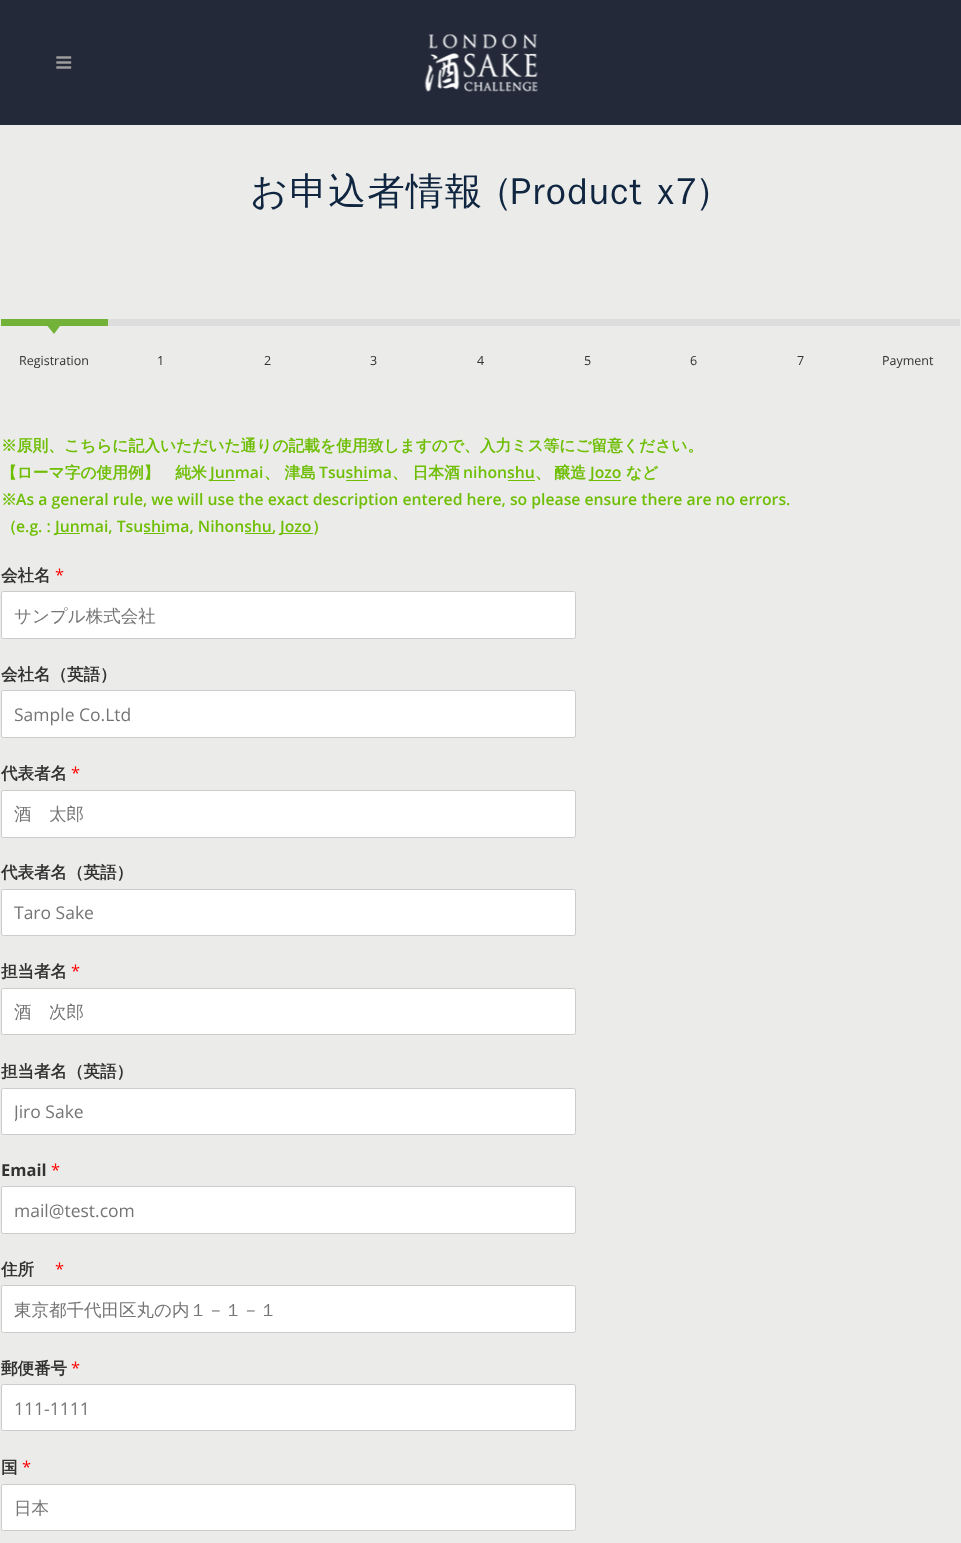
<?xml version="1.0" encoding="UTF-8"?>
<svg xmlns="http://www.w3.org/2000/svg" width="961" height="1543">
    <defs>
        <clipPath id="clip1"><rect x="15" y="1099" width="548" height="24"/></clipPath>
    </defs>
    <rect width="100%" height="100%" fill="#EBEBE9"/>
    <rect x="0" y="0" width="961" height="125" fill="#232939"/>
    <image x="56" y="56" width="16" height="13" href="img_01.png"/>
    <image x="424" y="34" width="114" height="58" href="img_02.png"/>
    <text x="250" y="204" word-spacing="2" font-family="WenQuanYi Zen Hei" font-size="37.5" font-weight="500" letter-spacing="1.25" fill="#0F2540">お申込者情報 (Product x7)</text>
    <rect x="1" y="319" width="107" height="7" fill="#72B239"/>
    <path d="M 47.5 326 H 60 L 54 334 Z" fill="#72B239"/>
    <text x="19" y="365" font-family="Open Sans" font-size="12.5" fill="#333333">Registration</text>
    <rect x="108" y="319" width="852" height="7" fill="#DDDDDD"/>
    <text x="157" y="365" font-family="Open Sans" font-size="12.5" fill="#333333">1</text>
    <text x="264" y="365" font-family="Open Sans" font-size="12.5" fill="#333333">2</text>
    <text x="370" y="365" font-family="Open Sans" font-size="12.5" fill="#333333">3</text>
    <text x="477" y="365" font-family="Open Sans" font-size="12.5" fill="#333333">4</text>
    <text x="584" y="365" font-family="Open Sans" font-size="12.5" fill="#333333">5</text>
    <text x="690" y="365" font-family="Open Sans" font-size="12.5" fill="#333333">6</text>
    <text x="797" y="365" font-family="Open Sans" font-size="12.5" fill="#333333">7</text>
    <text x="882" y="365" font-family="Open Sans" font-size="12.5" fill="#333333">Payment</text>
    <text font-family="WenQuanYi Zen Hei" font-size="15.75" font-weight="700" fill="#6EBE04">
        <tspan x="1" y="451">※原則、こちらに記入いただいた通りの記載を使用致しますので、入力ミス等にご留意ください。</tspan>
        <tspan x="1" y="478">【ローマ字の使用例】　純米</tspan>
    </text>
    <rect x="210" y="480" width="25" height="1" fill="#6EBE04"/>
    <text x="210" y="478" font-family="Open Sans" font-size="15.75" font-weight="600" fill="#6EBE04">Junmai</text>
    <text x="264" y="478" font-family="WenQuanYi Zen Hei" font-size="15.75" font-weight="700" fill="#6EBE04">、 津島</text>
    <text x="319" y="478" font-family="Open Sans" font-size="15.75" font-weight="600" fill="#6EBE04">Tsushima</text>
    <text x="392" y="478" font-family="WenQuanYi Zen Hei" font-size="15.75" font-weight="700" fill="#6EBE04">、 日本酒</text>
    <text x="463" y="478" font-family="Open Sans" font-size="15.75" font-weight="600" fill="#6EBE04">nihonshu</text>
    <text x="535" y="478" word-spacing="-1" font-family="WenQuanYi Zen Hei" font-size="15.75" font-weight="700" fill="#6EBE04">、 醸造</text>
    <rect x="590" y="480" width="31" height="1" fill="#6EBE04"/>
    <text x="590" y="478" font-family="Open Sans" font-size="15.75" font-weight="600" fill="#6EBE04">Jozo</text>
    <text x="626" y="478" font-family="WenQuanYi Zen Hei" font-size="15.75" font-weight="700" fill="#6EBE04">など</text>
    <rect x="346" y="480" width="22" height="1" fill="#6EBE04"/>
    <rect x="508" y="480" width="27" height="1" fill="#6EBE04"/>
    <text x="1" y="505" font-family="WenQuanYi Zen Hei" font-size="15.75" font-weight="700" fill="#6EBE04">※</text>
    <text x="16" y="505" font-family="Open Sans" font-size="15.75" font-weight="600" fill="#6EBE04">As a general rule, we will use the exact description entered here, so please ensure there are no errors.</text>
    <text x="1" y="532" font-family="WenQuanYi Zen Hei" font-size="15.75" font-weight="700" fill="#6EBE04">（</text>
    <text x="16" y="532" font-family="Open Sans" font-size="15.75" font-weight="600" fill="#6EBE04">e.g. :</text>
    <rect x="55" y="533" width="25" height="1" fill="#6EBE04"/>
    <text x="55" y="532" font-family="Open Sans" font-size="15.75" font-weight="600" fill="#6EBE04">Junmai, Tsushima, Nihonshu</text>
    <rect x="245" y="533" width="28" height="1" fill="#6EBE04"/>
    <text x="272" y="532" font-family="Open Sans" font-size="15.75" font-weight="600" fill="#6EBE04">,</text>
    <rect x="280" y="533" width="33" height="1" fill="#6EBE04"/>
    <text x="280" y="532" font-family="Open Sans" font-size="15.75" font-weight="600" fill="#6EBE04">Jozo</text>
    <text x="312" y="532" font-family="WenQuanYi Zen Hei" font-size="15.75" font-weight="700" fill="#6EBE04">）</text>
    <rect x="144" y="533" width="21" height="1" fill="#6EBE04"/>
    <text x="1" y="581" font-family="WenQuanYi Zen Hei" font-size="16.5" font-weight="700" fill="#333333">会社名</text>
    <text x="55" y="581" font-family="Open Sans" font-size="16.5" fill="#FF0000">*</text>
    <rect x="1.5" y="591.5" width="574" height="47" rx="2" fill="#FFFFFF" stroke="#CCCCCC"/>
    <text x="14" y="622" font-family="WenQuanYi Zen Hei" font-size="17.5" font-weight="500" fill="#757575">サンプル株式会社</text>
    <text x="1" y="680" font-family="WenQuanYi Zen Hei" font-size="16.5" font-weight="700" fill="#333333">会社名（英語）</text>
    <rect x="1.5" y="690.5" width="574" height="47" rx="2" fill="#FFFFFF" stroke="#CCCCCC"/>
    <text x="14" y="721" font-family="Open Sans" font-size="17.5" fill="#757575">Sample Co.Ltd</text>
    <text x="1" y="779" font-family="WenQuanYi Zen Hei" font-size="16.5" font-weight="700" fill="#333333">代表者名</text>
    <text x="71" y="779" font-family="Open Sans" font-size="16.5" fill="#FF0000">*</text>
    <rect x="1.5" y="790.5" width="574" height="47" rx="2" fill="#FFFFFF" stroke="#CCCCCC"/>
    <text x="14" y="820" font-family="WenQuanYi Zen Hei" font-size="17.5" font-weight="500" fill="#757575">酒　太郎</text>
    <text x="1" y="878" font-family="WenQuanYi Zen Hei" font-size="16.5" font-weight="700" fill="#333333">代表者名（英語）</text>
    <rect x="1.5" y="889.5" width="574" height="46" rx="2" fill="#FFFFFF" stroke="#CCCCCC"/>
    <text x="14" y="919" font-family="Open Sans" font-size="17.5" fill="#757575">Taro Sake</text>
    <text x="1" y="977" font-family="WenQuanYi Zen Hei" font-size="16.5" font-weight="700" fill="#333333">担当者名</text>
    <text x="71" y="977" font-family="Open Sans" font-size="16.5" fill="#FF0000">*</text>
    <rect x="1.5" y="988.5" width="574" height="46" rx="2" fill="#FFFFFF" stroke="#CCCCCC"/>
    <text x="14" y="1018" font-family="WenQuanYi Zen Hei" font-size="17.5" font-weight="500" fill="#757575">酒　次郎</text>
    <text x="1" y="1077" font-family="WenQuanYi Zen Hei" font-size="16.5" font-weight="700" fill="#333333">担当者名（英語）</text>
    <rect x="1.5" y="1088.5" width="574" height="46" rx="2" fill="#FFFFFF" stroke="#CCCCCC"/>
    <g clip-path="url(#clip1)">
        <text x="14" y="1118" font-family="Open Sans" font-size="17.5" fill="#757575">Jiro Sake</text>
    </g>
    <text x="1" y="1176" font-family="Open Sans" font-size="16.5" font-weight="700" fill="#333333">Email</text>
    <text x="51" y="1176" font-family="Open Sans" font-size="16.5" fill="#FF0000">*</text>
    <rect x="1.5" y="1186.5" width="574" height="47" rx="2" fill="#FFFFFF" stroke="#CCCCCC"/>
    <text x="14" y="1217" font-family="Open Sans" font-size="17.5" fill="#757575">mail@test.com</text>
    <text x="1" y="1275" font-family="WenQuanYi Zen Hei" font-size="16.5" font-weight="700" fill="#333333">住所</text>
    <text x="55" y="1275" font-family="Open Sans" font-size="16.5" fill="#FF0000">*</text>
    <rect x="1.5" y="1285.5" width="574" height="47" rx="2" fill="#FFFFFF" stroke="#CCCCCC"/>
    <text x="14" y="1316" font-family="WenQuanYi Zen Hei" font-size="17.5" font-weight="500" fill="#757575">東京都千代田区丸の内１－１－１</text>
    <text x="1" y="1374" font-family="WenQuanYi Zen Hei" font-size="16.5" font-weight="700" fill="#333333">郵便番号</text>
    <text x="71" y="1374" font-family="Open Sans" font-size="16.5" fill="#FF0000">*</text>
    <rect x="1.5" y="1384.5" width="574" height="46" rx="2" fill="#FFFFFF" stroke="#CCCCCC"/>
    <text x="14" y="1415" font-family="Open Sans" font-size="17.5" fill="#757575">111-1111</text>
    <text x="1" y="1473" font-family="WenQuanYi Zen Hei" font-size="16.5" font-weight="700" fill="#333333">国</text>
    <text x="22" y="1473" font-family="Open Sans" font-size="16.5" fill="#FF0000">*</text>
    <rect x="1.5" y="1484.5" width="574" height="46" rx="2" fill="#FFFFFF" stroke="#CCCCCC"/>
    <text x="14" y="1514" font-family="WenQuanYi Zen Hei" font-size="17.5" font-weight="500" fill="#757575">日本</text>
</svg>
